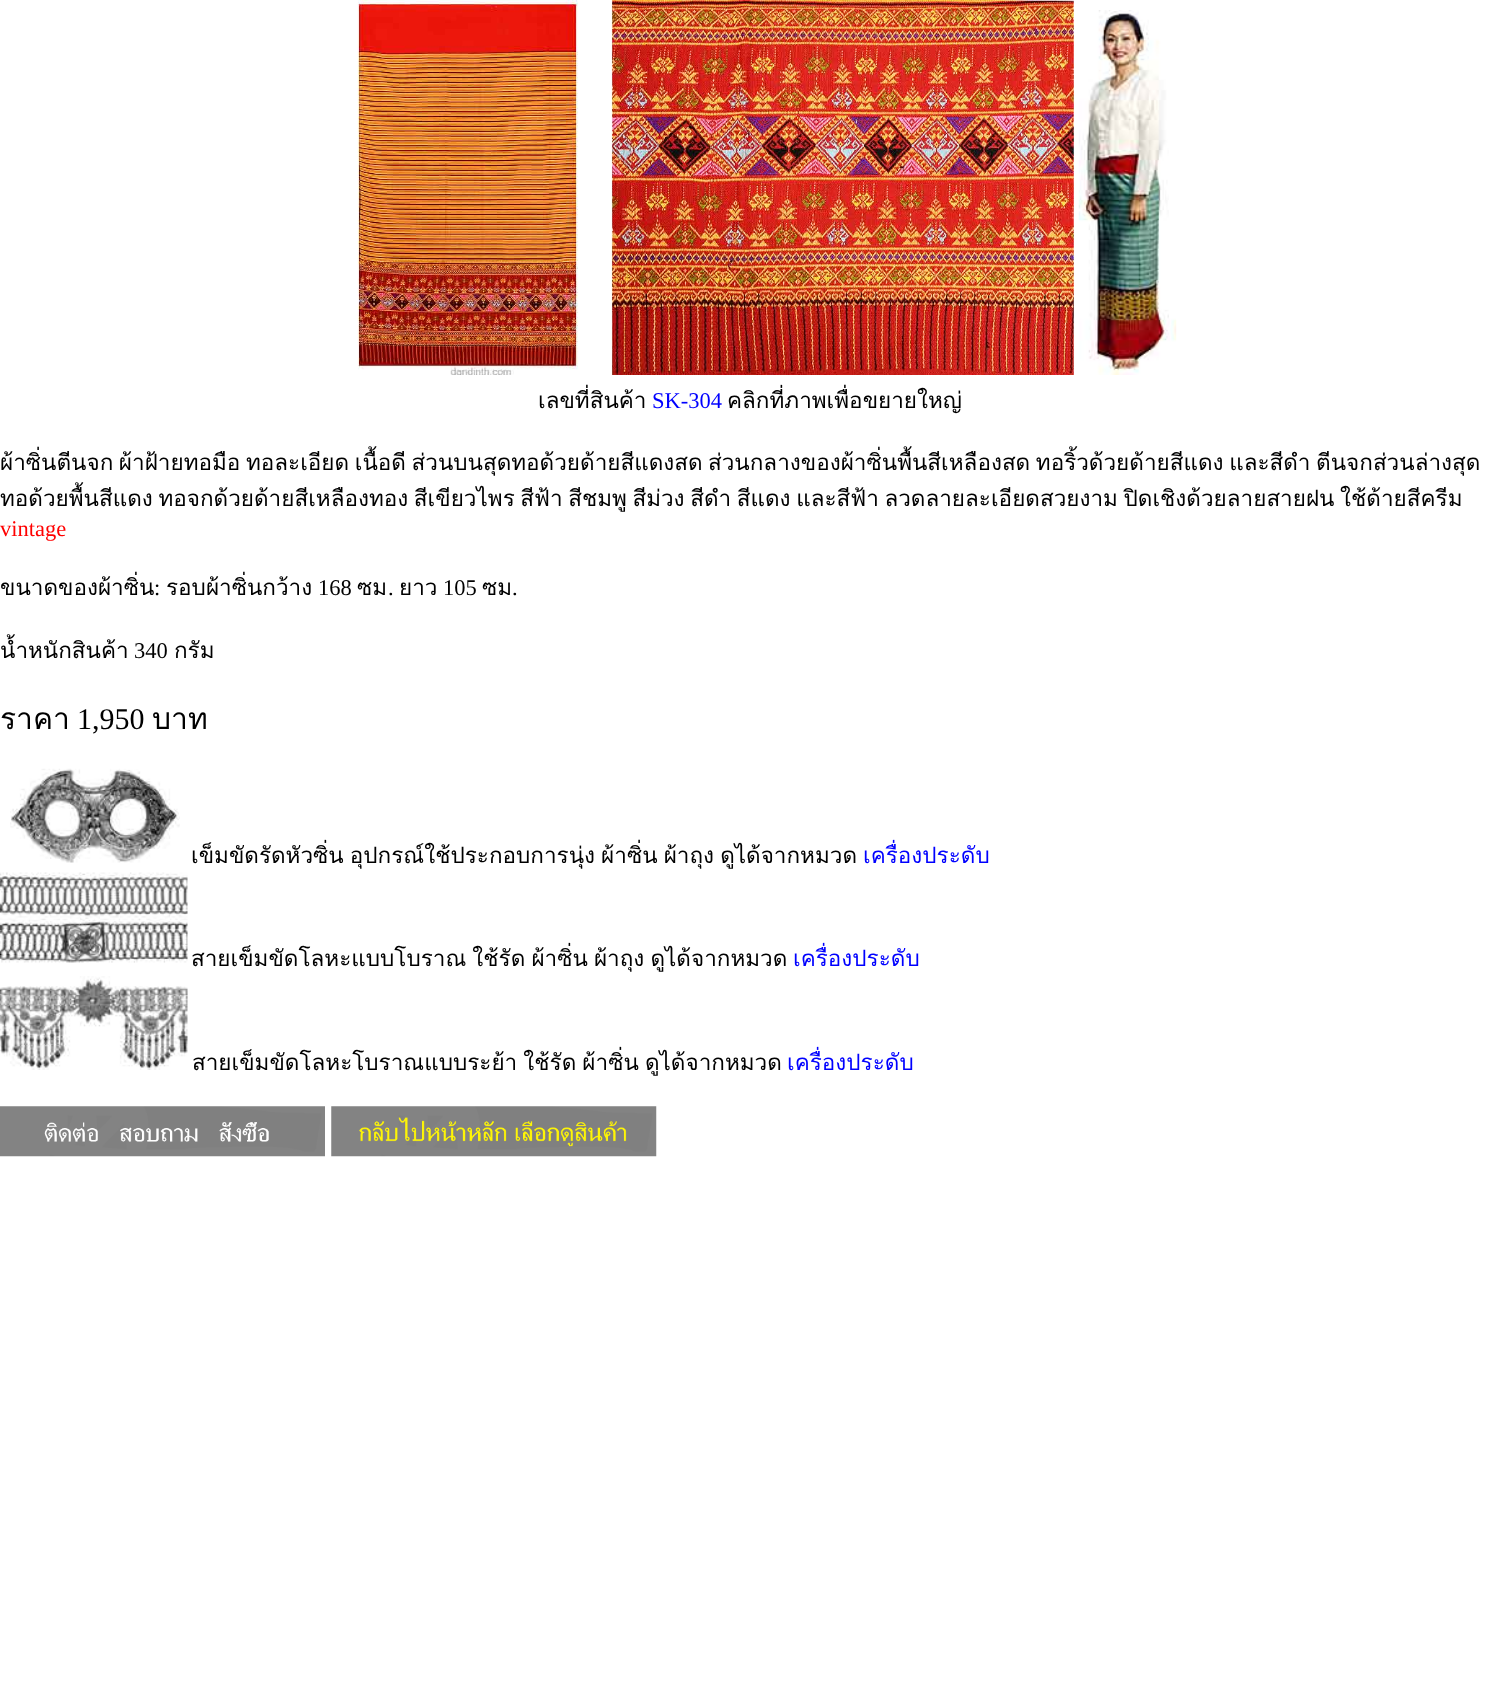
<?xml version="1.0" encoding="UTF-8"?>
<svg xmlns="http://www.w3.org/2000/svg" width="1499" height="1700">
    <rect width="100%" height="100%" fill="#FFFFFF"/>
    <image x="357" y="0" width="717" height="375" href="img_01.png"/>
    <image x="1078" y="10" width="99" height="365" href="img_02.png"/>
    <text x="538" y="408" font-family="Loma" font-size="22.5" fill="#000000">เลขที่สินค้า</text>
    <text x="652" y="408" font-family="Liberation Serif" font-size="22.5" fill="#0000FF">SK-304</text>
    <text x="727" y="408" font-family="Loma" font-size="22.5" fill="#000000">คลิกที่ภาพเพื่อขยายใหญ่</text>
    <text x="0" y="470" word-spacing="-2" font-family="Loma" font-size="22.5" fill="#000000">ผ้าซิ่นตีนจก ผ้าฝ้ายทอมือ ทอละเอียด เนื้อดี ส่วนบนสุดทอด้วยด้ายสีแดงสด</text>
    <text x="708" y="470" word-spacing="-2" font-family="Loma" font-size="22.5" fill="#000000">ส่วนกลางของผ้าซิ่นพื้นสีเหลืองสด ทอริ้วด้วยด้ายสีแดง และสีดำ ตีนจกส่วนล่างสุด</text>
    <text x="0" y="506" word-spacing="-2" font-family="Loma" font-size="22.5" fill="#000000">ทอด้วยพื้นสีแดง ทอจกด้วยด้ายสีเหลืองทอง สีเขียวไพร สีฟ้า สีชมพู สีม่วง สีดำ สีแดง และสีฟ้า ลวดลายละเอียดสวยงาม ปิดเชิงด้วยลายสายฝน ใช้ด้ายสีครีม</text>
    <text x="0" y="536" font-family="Liberation Serif" font-size="22.5" fill="#FF0000">vintage</text>
    <text x="0" y="595" font-family="Loma" font-size="22.5" fill="#000000">ขนาดของผ้าซิ่น</text>
    <text x="154" y="595" font-family="Liberation Serif" font-size="22.5" fill="#000000">:</text>
    <text x="166" y="595" font-family="Loma" font-size="22.5" fill="#000000">รอบผ้าซิ่นกว้าง</text>
    <text x="318" y="595" font-family="Liberation Serif" font-size="22.5" fill="#000000">168</text>
    <text x="357" y="595" font-family="Loma" font-size="22.5" fill="#000000">ซม</text>
    <text x="388" y="595" font-family="Liberation Serif" font-size="22.5" fill="#000000">.</text>
    <text x="399" y="595" font-family="Loma" font-size="22.5" fill="#000000">ยาว</text>
    <text x="443" y="595" font-family="Liberation Serif" font-size="22.5" fill="#000000">105</text>
    <text x="482" y="595" font-family="Loma" font-size="22.5" fill="#000000">ซม</text>
    <text x="512" y="595" font-family="Liberation Serif" font-size="22.5" fill="#000000">.</text>
    <text x="0" y="658" font-family="Loma" font-size="22.5" fill="#000000">น้ำหนักสินค้า</text>
    <text x="134" y="658" font-family="Liberation Serif" font-size="22.5" fill="#000000">340</text>
    <text x="174" y="658" font-family="Loma" font-size="22.5" fill="#000000">กรัม</text>
    <text x="0" y="729" font-family="Loma" font-size="30" fill="#000000">ราคา</text>
    <text x="77" y="729" font-family="Liberation Serif" font-size="30" fill="#000000">1,950</text>
    <text x="152" y="729" font-family="Loma" font-size="30" fill="#000000">บาท</text>
    <image x="10" y="768" width="170" height="95" href="img_03.png"/>
    <text x="191" y="863" word-spacing="-1.5" font-family="Loma" font-size="22.5" fill="#000000">เข็มขัดรัดหัวซิ่น อุปกรณ์ใช้ประกอบการนุ่ง ผ้าซิ่น ผ้าถุง ดูได้จากหมวด</text>
    <text x="863" y="863" font-family="Loma" font-size="22.5" fill="#0000FF">เครื่องประดับ</text>
    <image x="0" y="872" width="188" height="91" href="img_04.png"/>
    <text x="191" y="966" word-spacing="-1.5" font-family="Loma" font-size="22.5" fill="#000000">สายเข็มขัดโลหะแบบโบราณ ใช้รัด ผ้าซิ่น ผ้าถุง ดูได้จากหมวด</text>
    <text x="793" y="966" font-family="Loma" font-size="22.5" fill="#0000FF">เครื่องประดับ</text>
    <image x="0" y="976" width="188" height="94" href="img_05.png"/>
    <text x="192" y="1070" word-spacing="-1.5" font-family="Loma" font-size="22.5" fill="#000000">สายเข็มขัดโลหะโบราณแบบระย้า ใช้รัด ผ้าซิ่น ดูได้จากหมวด</text>
    <text x="787" y="1070" font-family="Loma" font-size="22.5" fill="#0000FF">เครื่องประดับ</text>
    <image x="0" y="1106" width="325" height="51" href="img_06.png"/>
    <image x="331" y="1106" width="326" height="51" href="img_07.png"/>
</svg>
